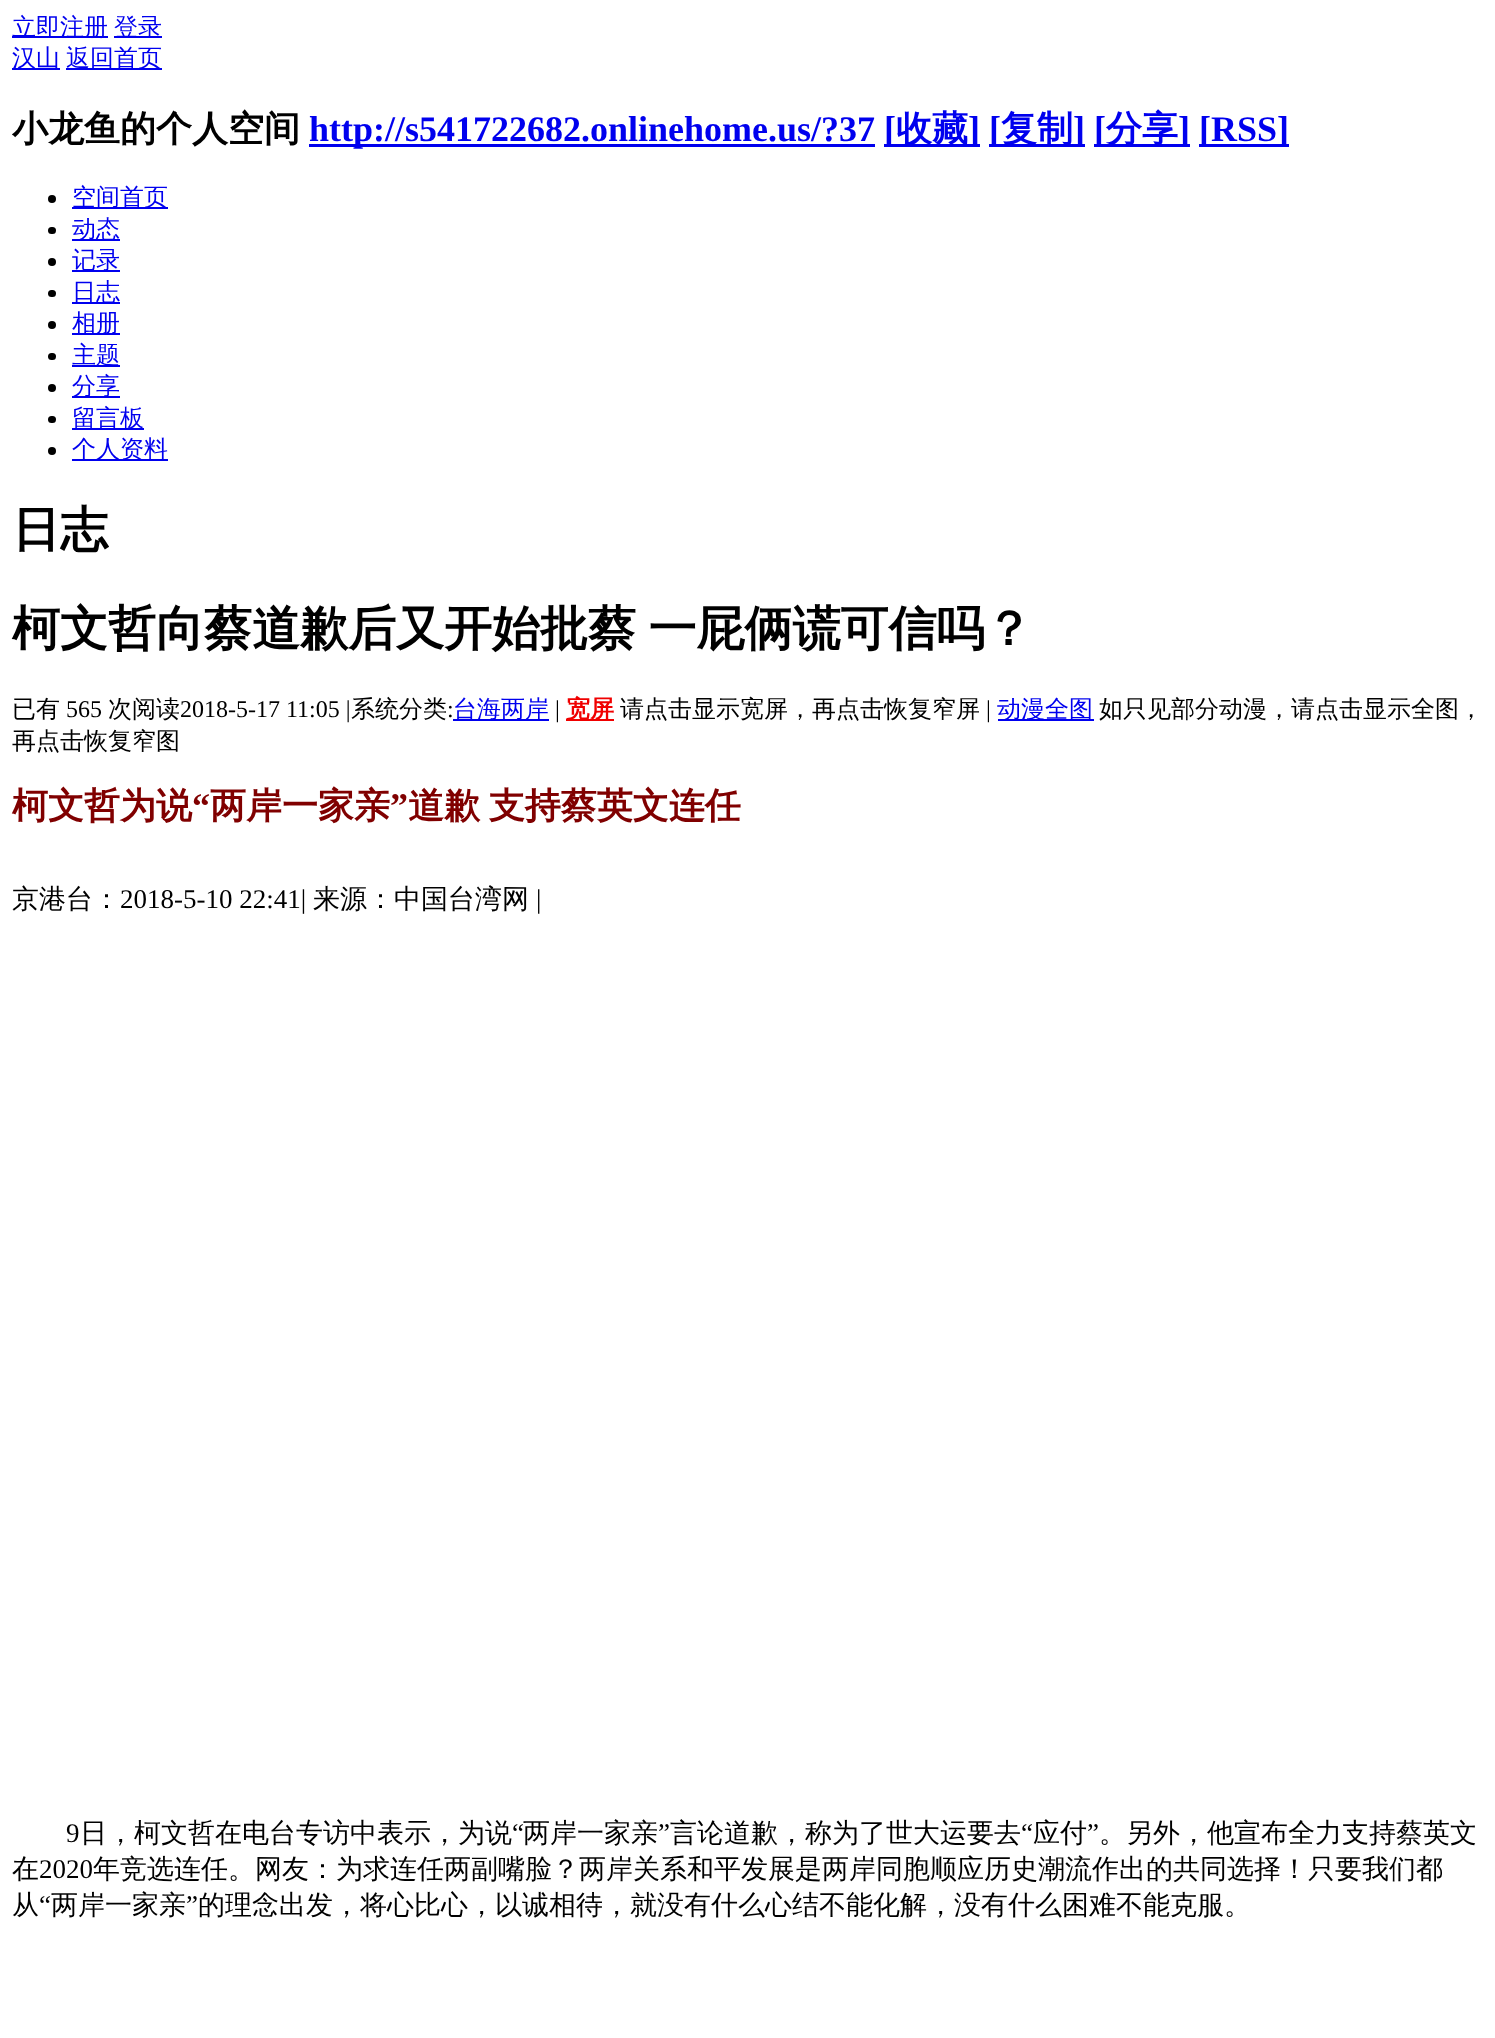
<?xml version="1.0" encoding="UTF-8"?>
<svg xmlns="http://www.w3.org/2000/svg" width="1495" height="2038">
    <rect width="100%" height="100%" fill="#FFFFFF"/>
    <rect x="12" y="36" width="96" height="2" fill="#0000EE"/>
    <text x="12" y="35" font-family="WenQuanYi Zen Hei" font-size="24" font-weight="500" fill="#0000EE">立即注册</text>
    <rect x="114" y="36" width="48" height="2" fill="#0000EE"/>
    <text x="114" y="35" font-family="WenQuanYi Zen Hei" font-size="24" font-weight="500" fill="#0000EE">登录</text>
    <rect x="12" y="68" width="48" height="2" fill="#0000EE"/>
    <text x="12" y="66" font-family="WenQuanYi Zen Hei" font-size="24" font-weight="500" fill="#0000EE">汉山</text>
    <rect x="66" y="68" width="96" height="2" fill="#0000EE"/>
    <text x="66" y="66" font-family="WenQuanYi Zen Hei" font-size="24" font-weight="500" fill="#0000EE">返回首页</text>
    <text x="12" y="141" font-family="WenQuanYi Zen Hei" font-size="36" font-weight="700" fill="#000000">小龙鱼的个人空间</text>
    <rect x="309" y="144" width="566" height="3" fill="#0000EE"/>
    <text x="309" y="141" font-family="Liberation Serif" font-size="36" font-weight="700" fill="#0000EE">http://s541722682.onlinehome.us/?37</text>
    <rect x="884" y="144" width="96" height="3" fill="#0000EE"/>
    <text x="884" y="141" font-family="Liberation Serif" font-size="36" font-weight="700" fill="#0000EE">[</text>
    <text x="896" y="141" font-family="WenQuanYi Zen Hei" font-size="36" font-weight="700" fill="#0000EE">收藏</text>
    <text x="968" y="141" font-family="Liberation Serif" font-size="36" font-weight="700" fill="#0000EE">]</text>
    <rect x="989" y="144" width="96" height="3" fill="#0000EE"/>
    <text x="989" y="141" font-family="Liberation Serif" font-size="36" font-weight="700" fill="#0000EE">[</text>
    <text x="1001" y="141" font-family="WenQuanYi Zen Hei" font-size="36" font-weight="700" fill="#0000EE">复制</text>
    <text x="1073" y="141" font-family="Liberation Serif" font-size="36" font-weight="700" fill="#0000EE">]</text>
    <rect x="1094" y="144" width="96" height="3" fill="#0000EE"/>
    <text x="1094" y="141" font-family="Liberation Serif" font-size="36" font-weight="700" fill="#0000EE">[</text>
    <text x="1106" y="141" font-family="WenQuanYi Zen Hei" font-size="36" font-weight="700" fill="#0000EE">分享</text>
    <text x="1178" y="141" font-family="Liberation Serif" font-size="36" font-weight="700" fill="#0000EE">]</text>
    <rect x="1199" y="144" width="90" height="3" fill="#0000EE"/>
    <text x="1199" y="141" font-family="Liberation Serif" font-size="36" font-weight="700" fill="#0000EE">[RSS]</text>
    <circle cx="52" cy="199" r="4" fill="#000000"/>
    <rect x="72" y="207" width="96" height="2" fill="#0000EE"/>
    <text x="72" y="205" font-family="WenQuanYi Zen Hei" font-size="24" font-weight="500" fill="#0000EE">空间首页</text>
    <rect x="48" y="227" width="8" height="7" rx="3.5" fill="#000000"/>
    <rect x="72" y="239" width="48" height="2" fill="#0000EE"/>
    <text x="72" y="237" font-family="WenQuanYi Zen Hei" font-size="24" font-weight="500" fill="#0000EE">动态</text>
    <circle cx="52" cy="262" r="4" fill="#000000"/>
    <rect x="72" y="270" width="48" height="2" fill="#0000EE"/>
    <text x="72" y="268" font-family="WenQuanYi Zen Hei" font-size="24" font-weight="500" fill="#0000EE">记录</text>
    <rect x="48" y="290" width="8" height="7" rx="3.5" fill="#000000"/>
    <rect x="72" y="302" width="48" height="2" fill="#0000EE"/>
    <text x="72" y="300" font-family="WenQuanYi Zen Hei" font-size="24" font-weight="500" fill="#0000EE">日志</text>
    <circle cx="52" cy="325" r="4" fill="#000000"/>
    <rect x="72" y="333" width="48" height="2" fill="#0000EE"/>
    <text x="72" y="331" font-family="WenQuanYi Zen Hei" font-size="24" font-weight="500" fill="#0000EE">相册</text>
    <rect x="48" y="353" width="8" height="7" rx="3.5" fill="#000000"/>
    <rect x="72" y="365" width="48" height="2" fill="#0000EE"/>
    <text x="72" y="363" font-family="WenQuanYi Zen Hei" font-size="24" font-weight="500" fill="#0000EE">主题</text>
    <circle cx="52" cy="388" r="4" fill="#000000"/>
    <rect x="72" y="396" width="48" height="2" fill="#0000EE"/>
    <text x="72" y="394" font-family="WenQuanYi Zen Hei" font-size="24" font-weight="500" fill="#0000EE">分享</text>
    <rect x="48" y="416" width="8" height="7" rx="3.5" fill="#000000"/>
    <rect x="72" y="428" width="72" height="2" fill="#0000EE"/>
    <text x="72" y="426" font-family="WenQuanYi Zen Hei" font-size="24" font-weight="500" fill="#0000EE">留言板</text>
    <circle cx="52" cy="451" r="4" fill="#000000"/>
    <rect x="72" y="459" width="96" height="2" fill="#0000EE"/>
    <text x="72" y="457" font-family="WenQuanYi Zen Hei" font-size="24" font-weight="500" fill="#0000EE">个人资料</text>
    <text x="12" y="546" font-family="WenQuanYi Zen Hei" font-size="48" font-weight="700" fill="#000000">日志</text>
    <text x="12" y="645" word-spacing="-2" font-family="WenQuanYi Zen Hei" font-size="48" font-weight="700" fill="#000000">柯文哲向蔡道歉后又开始批蔡 一屁俩谎可信吗？</text>
    <text x="12" y="717" font-family="WenQuanYi Zen Hei" font-size="24" font-weight="500" fill="#000000">已有</text>
    <text x="66" y="717" font-family="Liberation Serif" font-size="24" fill="#000000">565</text>
    <text x="108" y="717" font-family="WenQuanYi Zen Hei" font-size="24" font-weight="500" fill="#000000">次阅读</text>
    <text x="180" y="717" font-family="Liberation Serif" font-size="24" fill="#000000">2018-5-17 11:05 |</text>
    <text x="351" y="717" font-family="WenQuanYi Zen Hei" font-size="24" font-weight="500" fill="#000000">系统分类</text>
    <text x="447" y="717" font-family="Liberation Serif" font-size="24" fill="#000000">:</text>
    <rect x="453" y="719" width="96" height="2" fill="#0000EE"/>
    <text x="453" y="717" font-family="WenQuanYi Zen Hei" font-size="24" font-weight="500" fill="#0000EE">台海两岸</text>
    <text x="555" y="717" font-family="Liberation Serif" font-size="24" fill="#000000">|</text>
    <rect x="566" y="719" width="48" height="2" fill="#F00000"/>
    <text x="566" y="717" font-family="WenQuanYi Zen Hei" font-size="24" font-weight="700" fill="#F00000">宽屏</text>
    <text x="620" y="717" font-family="WenQuanYi Zen Hei" font-size="24" font-weight="500" fill="#000000">请点击显示宽屏，再点击恢复窄屏</text>
    <text x="986" y="717" font-family="Liberation Serif" font-size="24" fill="#000000">|</text>
    <rect x="998" y="719" width="96" height="2" fill="#0000F0"/>
    <text x="997" y="717" font-family="WenQuanYi Zen Hei" font-size="24" font-weight="500" fill="#0000EE">动漫全图</text>
    <text x="1099" y="717" font-family="WenQuanYi Zen Hei" font-size="24" font-weight="500" fill="#000000">如只见部分动漫，请点击显示全图，</text>
    <text x="12" y="749" font-family="WenQuanYi Zen Hei" font-size="24" font-weight="500" fill="#000000">再点击恢复窄图</text>
    <text x="12" y="818" font-family="WenQuanYi Zen Hei" font-size="36" font-weight="700" fill="#800000">柯文哲为说</text>
    <text x="192" y="818" font-family="Liberation Serif" font-size="36" font-weight="700" fill="#800000">“</text>
    <text x="210" y="818" font-family="WenQuanYi Zen Hei" font-size="36" font-weight="700" fill="#800000">两岸一家亲</text>
    <text x="390" y="818" font-family="Liberation Serif" font-size="36" font-weight="700" fill="#800000">”</text>
    <text x="408" y="818" word-spacing="-2" font-family="WenQuanYi Zen Hei" font-size="36" font-weight="700" fill="#800000">道歉 支持蔡英文连任</text>
    <text x="12" y="908" font-family="WenQuanYi Zen Hei" font-size="27" font-weight="500" fill="#000000">京港台：</text>
    <text x="120" y="908" font-family="Liberation Serif" font-size="27" fill="#000000">2018-5-10 22:41|</text>
    <text x="313" y="908" font-family="WenQuanYi Zen Hei" font-size="27" font-weight="500" fill="#000000">来源：中国台湾网</text>
    <text x="536" y="908" font-family="Liberation Serif" font-size="27" fill="#000000">|</text>
    <text x="66" y="1842" font-family="Liberation Serif" font-size="27" fill="#000000">9</text>
    <text x="80" y="1842" font-family="WenQuanYi Zen Hei" font-size="27" font-weight="500" fill="#000000">日，柯文哲在电台专访中表示，为说</text>
    <text x="512" y="1842" font-family="Liberation Serif" font-size="27" fill="#000000">“</text>
    <text x="523" y="1842" font-family="WenQuanYi Zen Hei" font-size="27" font-weight="500" fill="#000000">两岸一家亲</text>
    <text x="658" y="1842" font-family="Liberation Serif" font-size="27" fill="#000000">”</text>
    <text x="670" y="1842" font-family="WenQuanYi Zen Hei" font-size="27" font-weight="500" fill="#000000">言论道歉，称为了世大运要去</text>
    <text x="1021" y="1842" font-family="Liberation Serif" font-size="27" fill="#000000">“</text>
    <text x="1033" y="1842" font-family="WenQuanYi Zen Hei" font-size="27" font-weight="500" fill="#000000">应付</text>
    <text x="1087" y="1842" font-family="Liberation Serif" font-size="27" fill="#000000">”</text>
    <text x="1099" y="1842" font-family="WenQuanYi Zen Hei" font-size="27" font-weight="500" fill="#000000">。另外，他宣布全力支持蔡英文</text>
    <text x="12" y="1878" font-family="WenQuanYi Zen Hei" font-size="27" font-weight="500" fill="#000000">在</text>
    <text x="39" y="1878" font-family="Liberation Serif" font-size="27" fill="#000000">2020</text>
    <text x="93" y="1878" font-family="WenQuanYi Zen Hei" font-size="27" font-weight="500" fill="#000000">年竞选连任。网友：为求连任两副嘴脸？两岸关系和平发展是两岸同胞顺应历史潮流作出的共同选择！只要我们都</text>
    <text x="12" y="1914" font-family="WenQuanYi Zen Hei" font-size="27" font-weight="500" fill="#000000">从</text>
    <text x="39" y="1914" font-family="Liberation Serif" font-size="27" fill="#000000">“</text>
    <text x="51" y="1914" font-family="WenQuanYi Zen Hei" font-size="27" font-weight="500" fill="#000000">两岸一家亲</text>
    <text x="186" y="1914" font-family="Liberation Serif" font-size="27" fill="#000000">”</text>
    <text x="198" y="1914" font-family="WenQuanYi Zen Hei" font-size="27" font-weight="500" fill="#000000">的理念出发，将心比心，以诚相待，就没有什么心结不能化解，没有什么困难不能克服。</text>
</svg>
